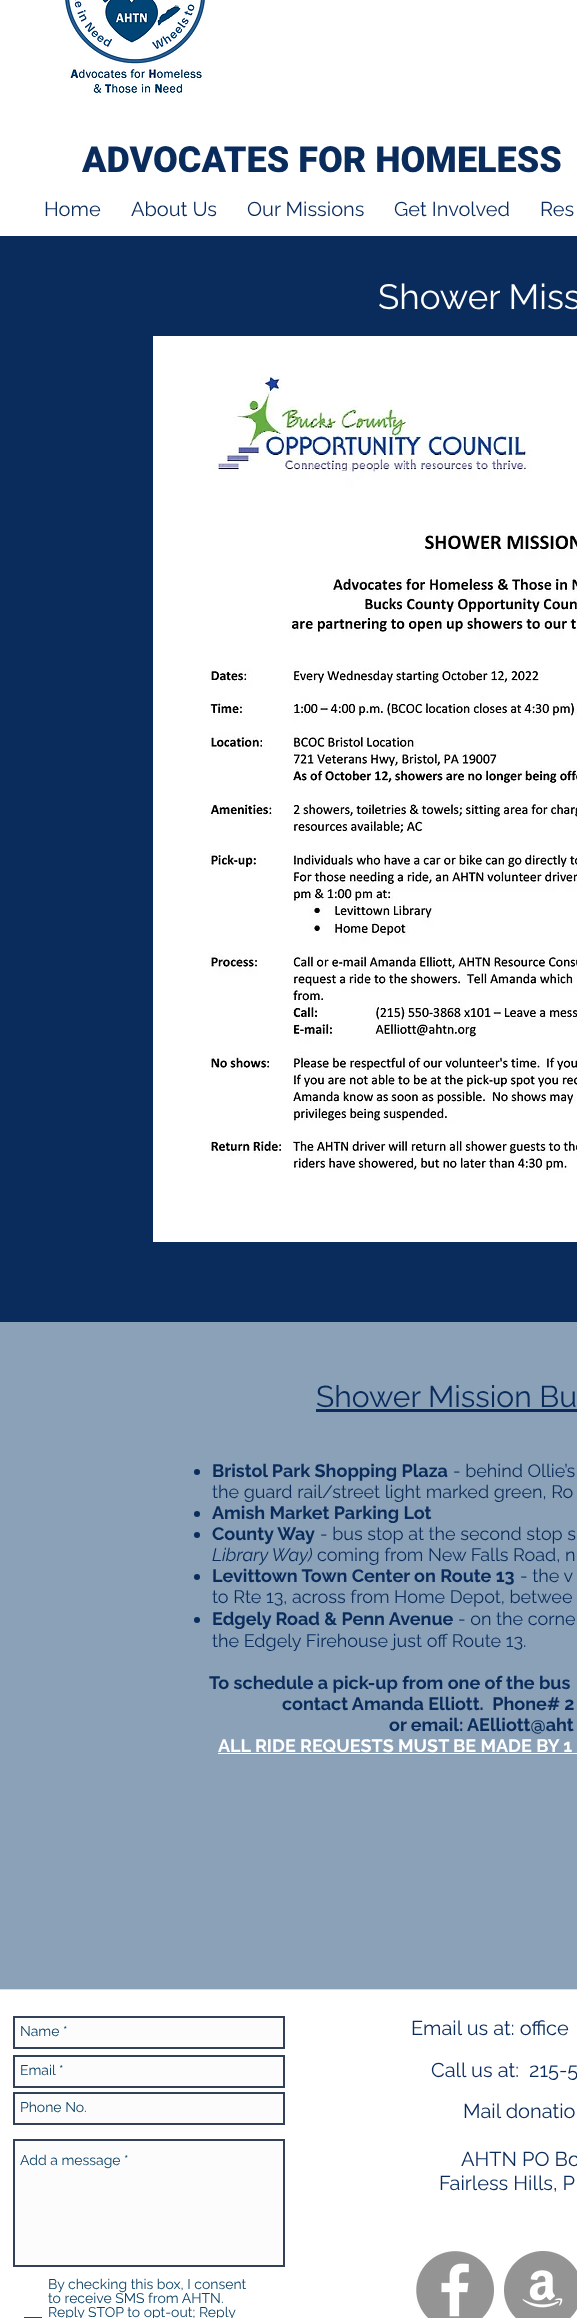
<?xml version="1.0" encoding="UTF-8"?>
<svg xmlns="http://www.w3.org/2000/svg" width="577" height="2318">
    <rect width="100%" height="100%" fill="#0A2C5C"/>
    <rect x="0" y="0" width="577" height="236" fill="#FFFFFF"/>
    <image x="65" y="0" width="140" height="95" href="img_01.png"/>
    <text x="82" y="172" font-family="Roboto" font-size="36" font-weight="900" fill="#0A2C5C">ADVOCATES FOR HOMELESS</text>
    <text x="44" y="216" font-family="Raleway" font-size="20" fill="#0A2C5C">Home</text>
    <text x="131" y="216" font-family="Raleway" font-size="20" fill="#0A2C5C">About Us</text>
    <text x="247" y="216" font-family="Raleway" font-size="20" fill="#0A2C5C">Our Missions</text>
    <text x="394" y="216" font-family="Raleway" font-size="20" fill="#0A2C5C">Get Involved</text>
    <text x="540" y="216" font-family="Raleway" font-size="20" fill="#0A2C5C">Res</text>
    <text x="378" y="309" font-family="Raleway" font-size="35" fill="#FFFFFF">Shower Miss</text>
    <image x="153" y="336" width="424" height="906" href="img_02.png"/>
    <rect x="0" y="1322" width="577" height="667" fill="#8AA1B7"/>
    <text x="316" y="1407" font-family="Raleway" font-size="30" fill="#0A2C5C">Shower Mission Bu</text>
    <rect x="316" y="1409" width="261" height="3" fill="#0A2C5C"/>
    <circle cx="197" cy="1472" r="3" fill="#0A2C5C"/>
    <text x="212" y="1477" font-family="Raleway" font-size="18" font-weight="700" fill="#0A2C5C">Bristol Park Shopping Plaza</text>
    <text x="453" y="1477" font-family="Raleway" font-size="18" fill="#0A2C5C">- behind Ollie’s</text>
    <text x="212" y="1498" font-family="Raleway" font-size="18" fill="#0A2C5C">the guard rail/street light marked green, Ro</text>
    <circle cx="197" cy="1514" r="3" fill="#0A2C5C"/>
    <text x="212" y="1519" font-family="Raleway" font-size="18" font-weight="700" fill="#0A2C5C">Amish Market Parking Lot</text>
    <circle cx="197" cy="1535" r="3" fill="#0A2C5C"/>
    <text x="212" y="1540" font-family="Raleway" font-size="18" font-weight="700" fill="#0A2C5C">County Way</text>
    <text x="320" y="1540" font-family="Raleway" font-size="18" fill="#0A2C5C">- bus stop at the second stop s</text>
    <text x="212" y="1561" font-family="Raleway" font-size="18" font-style="italic" fill="#0A2C5C">Library Way)</text>
    <text x="317" y="1561" font-family="Raleway" font-size="18" fill="#0A2C5C">coming from New Falls Road, n</text>
    <circle cx="197" cy="1577" r="3" fill="#0A2C5C"/>
    <text x="212" y="1582" font-family="Raleway" font-size="18" font-weight="700" fill="#0A2C5C">Levittown Town Center on Route 13</text>
    <text x="520" y="1582" font-family="Raleway" font-size="18" fill="#0A2C5C">- the v</text>
    <text x="212" y="1603" font-family="Raleway" font-size="18" fill="#0A2C5C">to Rte 13, across from Home Depot, betwee</text>
    <circle cx="197" cy="1620" r="3" fill="#0A2C5C"/>
    <text x="212" y="1625" font-family="Raleway" font-size="18" font-weight="700" fill="#0A2C5C">Edgely Road &amp; Penn Avenue</text>
    <text x="458" y="1625" font-family="Raleway" font-size="18" fill="#0A2C5C">- on the corne</text>
    <text x="212" y="1647" font-family="Raleway" font-size="18" fill="#0A2C5C">the Edgely Firehouse just off Route 13.</text>
    <text x="209" y="1689" font-family="Raleway" font-size="18" font-weight="700" fill="#0A2C5C">To schedule a pick-up from one of the bus</text>
    <text x="282" y="1710" font-family="Raleway" font-size="18" font-weight="700" fill="#0A2C5C" xml:space="preserve">contact Amanda Elliott.  Phone# 2</text>
    <text x="389" y="1731" font-family="Raleway" font-size="18" font-weight="700" fill="#0A2C5C">or email:</text>
    <text x="467" y="1731" font-family="Raleway" font-size="18" font-weight="700" fill="#0A2C5C">AElliott@aht</text>
    <text x="218" y="1752" font-family="Raleway" font-size="18" font-weight="700" fill="#FFFFFF">ALL RIDE REQUESTS MUST BE MADE BY 1</text>
    <rect x="218" y="1753" width="359" height="1" fill="#FFFFFF"/>
    <rect x="0" y="1990" width="577" height="328" fill="#FFFFFF"/>
    <rect x="0" y="1989" width="577" height="1" fill="#DADFE7"/>
    <rect x="14" y="2017" width="270" height="31" fill="#FCFCFC" stroke="#324158" stroke-width="2"/>
    <text x="20" y="2036" font-family="Raleway" font-size="14" fill="#0C4266">Name *</text>
    <rect x="14" y="2056" width="270" height="31" fill="#FCFCFC" stroke="#324158" stroke-width="2"/>
    <text x="20" y="2075" font-family="Raleway" font-size="14" fill="#0C4266">Email *</text>
    <rect x="14" y="2093" width="270" height="31" fill="#FCFCFC" stroke="#324158" stroke-width="2"/>
    <text x="20" y="2112" font-family="Raleway" font-size="14" fill="#0C4266">Phone No.</text>
    <rect x="14" y="2140" width="270" height="126" fill="#FCFCFC" stroke="#324158" stroke-width="2"/>
    <text x="20" y="2165" font-family="Raleway" font-size="14" fill="#0C4266">Add a message *</text>
    <rect x="24.5" y="2317.5" width="17" height="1" fill="none" stroke="#324158"/>
    <text font-family="Raleway" font-size="14" fill="#0C4266">
        <tspan x="48" y="2289">By checking this box, I consent</tspan>
        <tspan x="48" y="2303">to receive SMS from AHTN.</tspan>
        <tspan x="48" y="2317">Reply STOP to opt-out; Reply</tspan>
    </text>
    <text x="411" y="2035" font-family="Raleway" font-size="20" fill="#0A2C5C">Email us at: office</text>
    <text x="431" y="2077" font-family="Raleway" font-size="20" fill="#0A2C5C" xml:space="preserve">Call us at:  215-5</text>
    <text x="463" y="2118" font-family="Raleway" font-size="20" fill="#0A2C5C">Mail donatio</text>
    <text x="461" y="2166" font-family="Raleway" font-size="20" fill="#0A2C5C">AHTN PO Bo</text>
    <text x="439" y="2190" font-family="Raleway" font-size="20" fill="#0A2C5C">Fairless Hills, P</text>
    <image x="416" y="2251" width="78" height="67" href="img_03.png"/>
    <image x="504" y="2251" width="73" height="67" href="img_04.png"/>
</svg>
